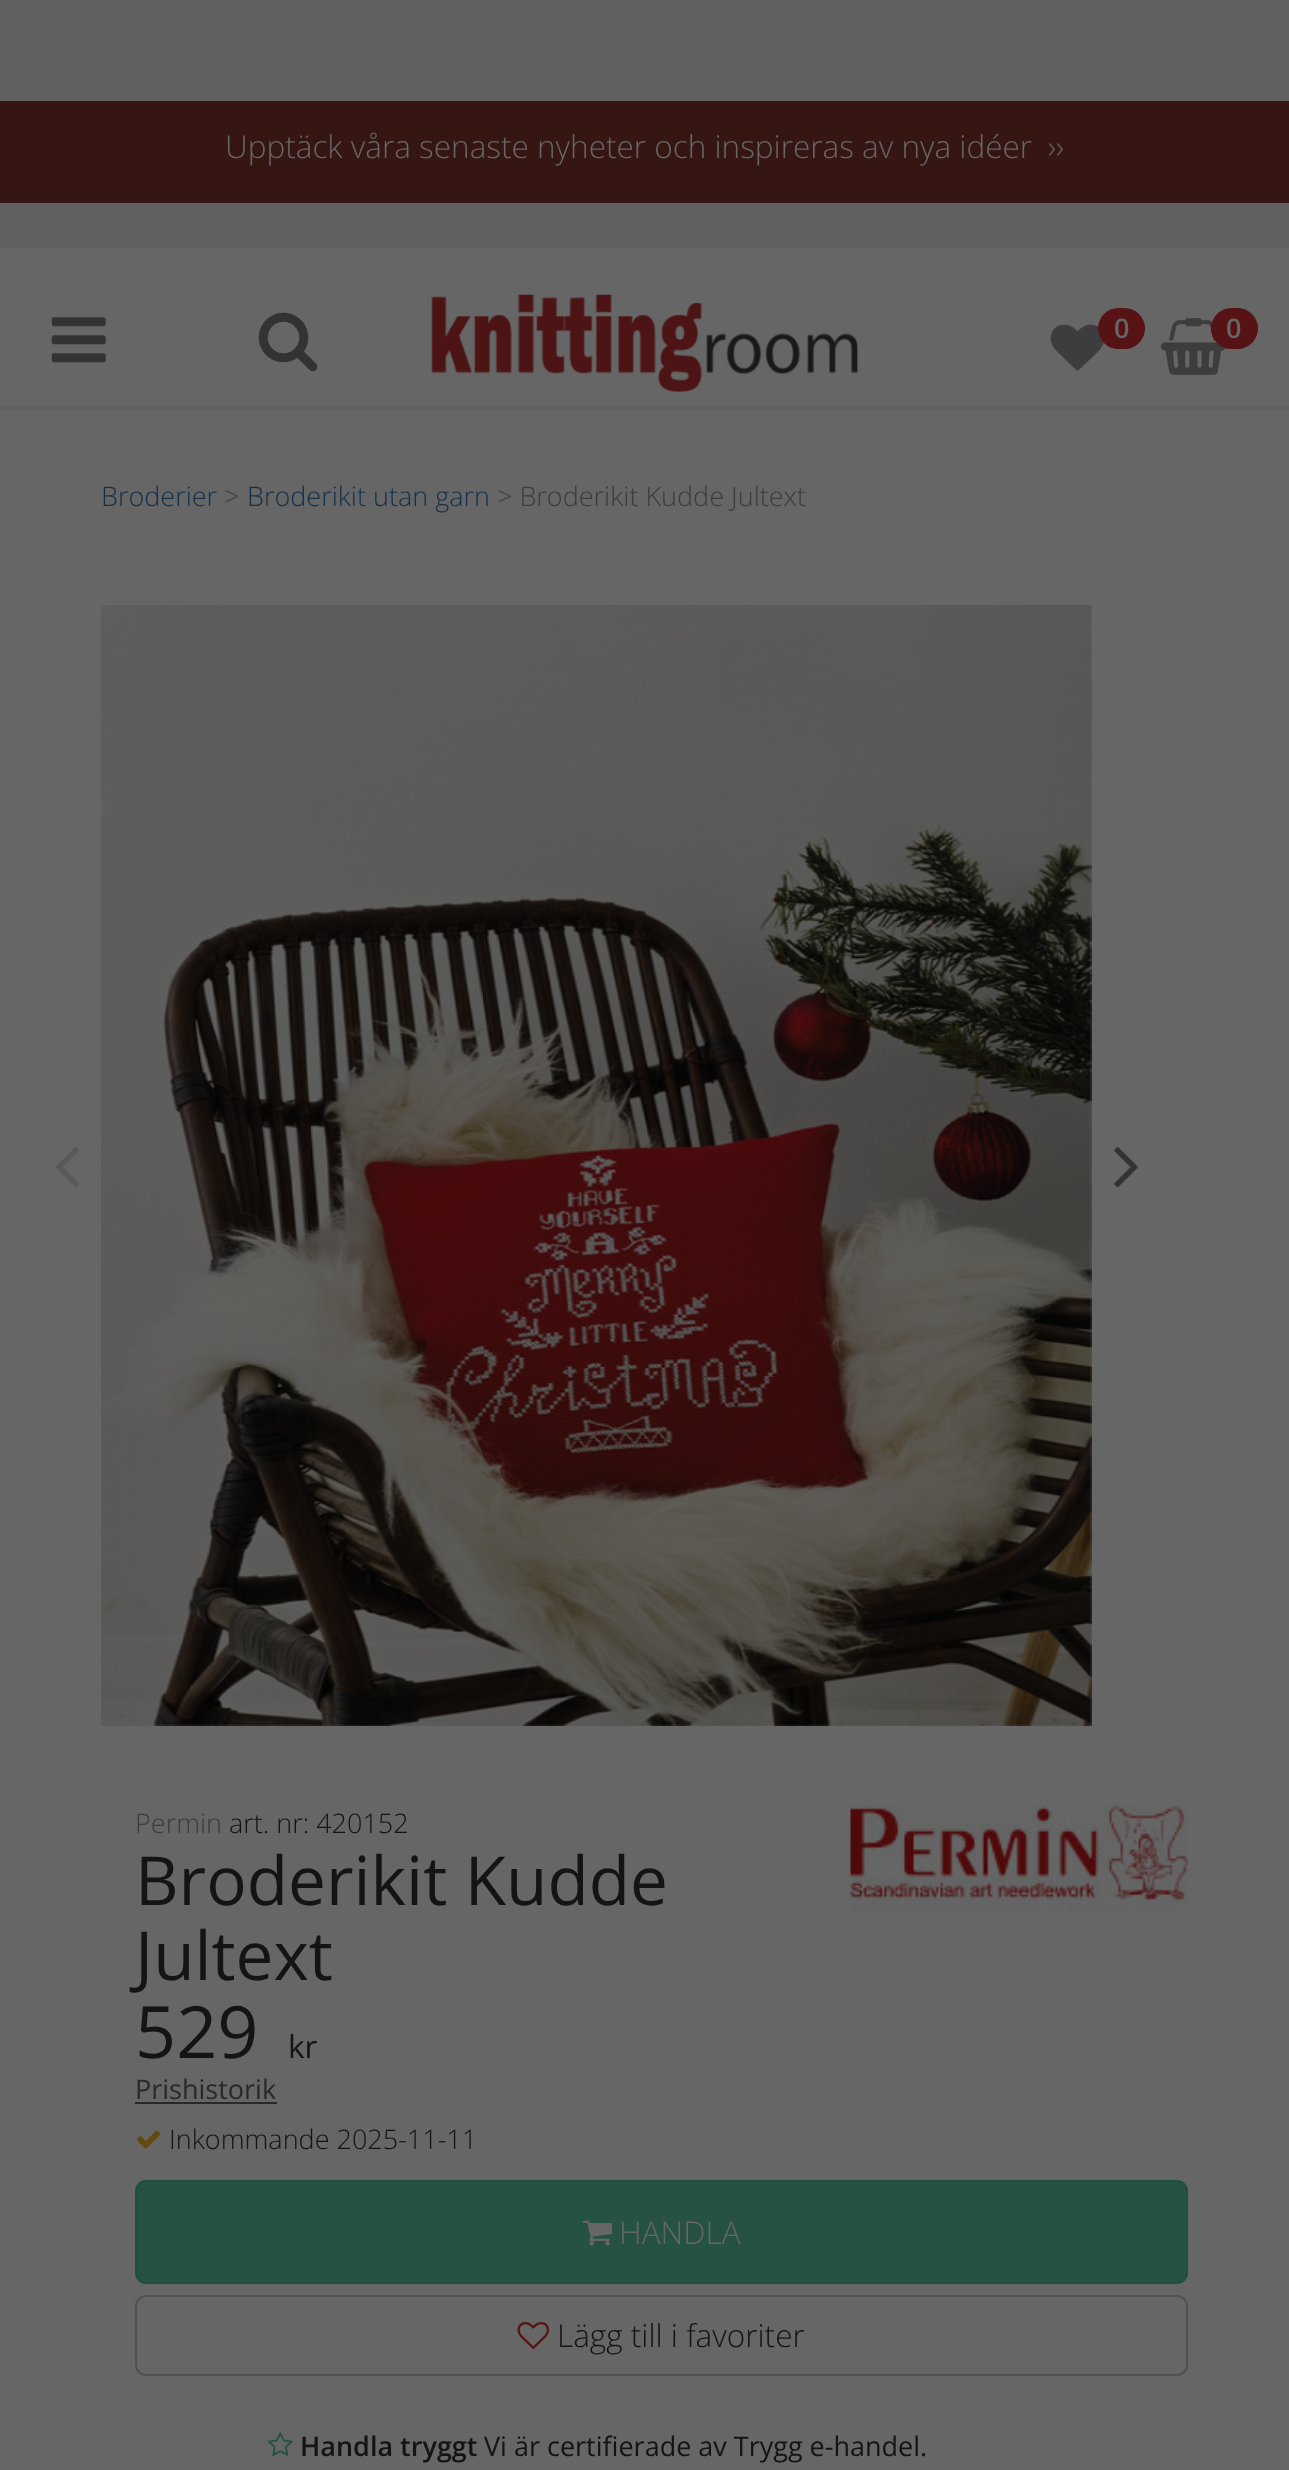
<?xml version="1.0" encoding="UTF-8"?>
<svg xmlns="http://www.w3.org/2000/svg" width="1289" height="2470">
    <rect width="100%" height="100%" fill="#666666"/>
    <rect x="0" y="405" width="1289" height="5" fill="#616161"/>
    <rect x="0" y="0" width="1289" height="248" fill="#606060"/>
    <rect x="0" y="101" width="1289" height="102" fill="#361613"/>
    <text x="225" y="158" font-family="Open Sans" font-size="31.5" font-weight="300" fill="#666666">Upptäck våra senaste nyheter och inspireras av nya idéer</text>
    <text x="1048" y="158" font-family="Open Sans" font-size="31.5" font-weight="300" fill="#666666">››</text>
    <image x="51" y="317" width="55" height="46" href="img_01.png"/>
    <image x="258" y="312" width="60" height="60" href="img_02.png"/>
    <image x="431" y="294" width="427" height="98" href="img_03.png"/>
    <image x="1050" y="324" width="54" height="47" href="img_04.png"/>
    <rect x="1098" y="308" width="47" height="41" rx="20.5" fill="#561214"/>
    <text x="1114" y="338" font-family="Open Sans" font-size="27" font-weight="600" fill="#666666">0</text>
    <image x="1161" y="318" width="65" height="57" href="img_05.png"/>
    <rect x="1211" y="308" width="47" height="41" rx="20.5" fill="#561214"/>
    <text x="1226" y="338" font-family="Open Sans" font-size="27" font-weight="600" fill="#666666">0</text>
    <text x="101" y="506" font-family="Open Sans" font-size="27" font-weight="300" fill="#143149">Broderier</text>
    <text x="224" y="506" font-family="Open Sans" font-size="27" font-weight="300" fill="#3D3D3D">&gt;</text>
    <text x="247" y="506" font-family="Open Sans" font-size="27" font-weight="300" fill="#143149">Broderikit utan garn</text>
    <text x="497" y="506" font-family="Open Sans" font-size="27" font-weight="300" fill="#3D3D3D">&gt; Broderikit Kudde Jultext</text>
    <image x="56" y="1147" width="23" height="40" href="img_06.png"/>
    <image x="101" y="605" width="991" height="1121" href="img_07.png"/>
    <image x="1114" y="1147" width="24" height="41" href="img_08.png"/>
    <text x="135" y="1833" font-family="Open Sans" font-size="27" font-weight="300" fill="#3D3D3D">Permin</text>
    <text x="229" y="1833" font-family="Open Sans" font-size="27" font-weight="300" fill="#141414">art. nr: 420152</text>
    <image x="850" y="1804" width="338" height="109" href="img_09.png"/>
    <text font-family="Open Sans" font-size="67.5" fill="#141414">
        <tspan x="135" y="1905">Broderikit Kudde</tspan>
        <tspan x="135" y="1980">Jultext</tspan>
    </text>
    <text x="135" y="2058" font-family="Open Sans" font-size="72" fill="#141414">529</text>
    <text x="288" y="2058" font-family="Open Sans" font-size="31.5" fill="#141414">kr</text>
    <text x="135" y="2099" font-family="Open Sans" font-size="27" fill="#292929">Prishistorik</text>
    <rect x="135" y="2102" width="142" height="2" fill="#292929"/>
    <image x="136" y="2130" width="25" height="19" href="img_10.png"/>
    <text x="169" y="2149" font-family="Open Sans" font-size="27" font-weight="300" fill="#141414">Inkommande 2025-11-11</text>
    <rect x="136" y="2181" width="1051" height="102" rx="10" fill="#265244" stroke="#1E5040" stroke-width="2"/>
    <image x="582" y="2220" width="30" height="26" href="img_11.png"/>
    <text x="619" y="2244" font-family="Open Sans" font-size="31.5" font-weight="300" fill="#666666">HANDLA</text>
    <rect x="136" y="2296" width="1051" height="79" rx="10" fill="none" stroke="#525252" stroke-width="2"/>
    <image x="517" y="2322" width="32" height="27" href="img_12.png"/>
    <text x="557" y="2347" font-family="Open Sans" font-size="31.5" font-weight="300" fill="#141414">Lägg till i favoriter</text>
    <image x="267" y="2432" width="26" height="24" href="img_13.png"/>
    <text x="300" y="2456" font-family="Open Sans" font-size="27" font-weight="600" fill="#141414">Handla tryggt</text>
    <text x="484" y="2456" font-family="Open Sans" font-size="27" fill="#141414">Vi är certifierade av Trygg e-handel.</text>
</svg>
